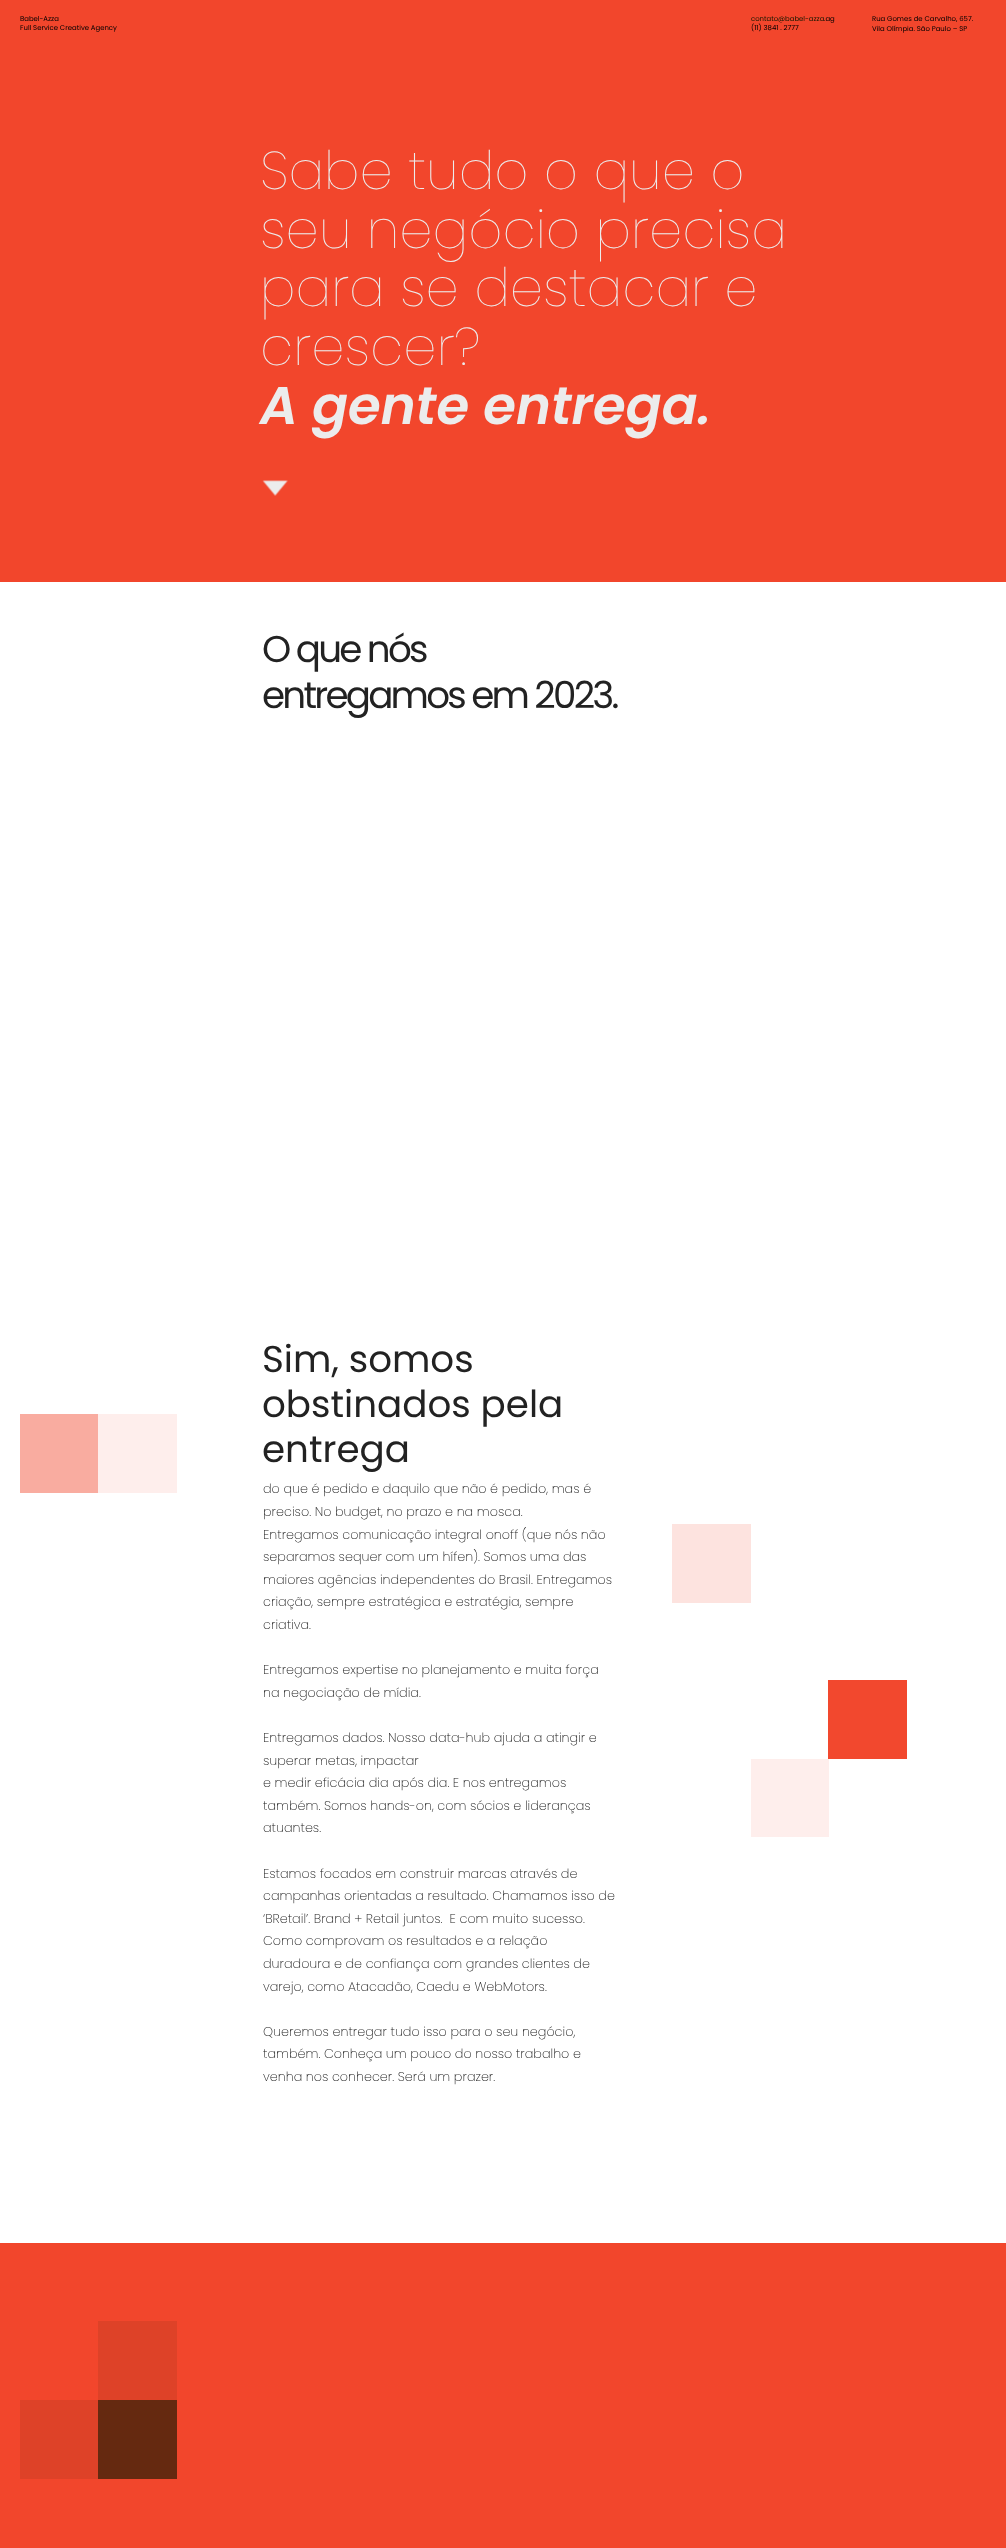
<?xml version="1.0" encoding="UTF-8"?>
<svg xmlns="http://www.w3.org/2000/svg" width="1006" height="2548">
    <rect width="100%" height="100%" fill="#FFFFFF"/>
    <rect x="0" y="0" width="1006" height="582" fill="#F2462C"/>
    <text font-family="Poppins" font-size="6.9" fill="#000000">
        <tspan x="20" y="21">Babel-Azza</tspan>
        <tspan x="20" y="30">Full Service Creative Agency</tspan>
    </text>
    <text x="751" y="21" font-family="Poppins" font-size="6.9" fill="#151901">contato@babel-azza</text>
    <text x="824" y="21" font-family="Poppins" font-size="6.9" fill="#000000">.ag</text>
    <text x="751" y="30" font-family="Poppins" font-size="6.9" fill="#000000">(11) 3841 . 2777</text>
    <text font-family="Poppins" font-size="6.9" fill="#000000">
        <tspan x="872" y="21">Rua Gomes de Carvalho, 657.</tspan>
        <tspan x="872" y="31">Vila Olímpia. São Paulo – SP</tspan>
    </text>
    <text font-family="Poppins" font-size="53" font-weight="100" fill="#ECECEC">
        <tspan x="260" y="189">Sabe tudo o que o</tspan>
        <tspan x="260" y="248">seu negócio precisa</tspan>
        <tspan x="260" y="306">para se destacar e</tspan>
        <tspan x="260" y="365">crescer?</tspan>
    </text>
    <text x="260" y="424" font-family="Poppins" font-size="53" font-weight="600" font-style="italic" fill="#ECECEC">A gente entrega.</text>
    <image x="262" y="480" width="26" height="16" href="img_01.png"/>
    <text font-family="Poppins" font-size="37.25" letter-spacing="-2.75" fill="#222222">
        <tspan x="262" y="662">O que nós</tspan>
        <tspan x="262" y="708">entregamos em 2023.</tspan>
    </text>
    <rect x="20" y="1414" width="78" height="79" fill="#F9ACA0"/>
    <rect x="98" y="1414" width="79" height="79" fill="#FEEEEC"/>
    <text font-family="Poppins" font-size="37.25" fill="#222222">
        <tspan x="262" y="1372">Sim, somos</tspan>
        <tspan x="262" y="1417">obstinados pela</tspan>
        <tspan x="262" y="1462">entrega</tspan>
    </text>
    <text font-family="Poppins" font-size="12.75" font-weight="200" fill="#222222">
        <tspan x="263" y="1493">do que é pedido e daquilo que não é pedido, mas é</tspan>
        <tspan x="263" y="1516">preciso. No budget, no prazo e na mosca.</tspan>
        <tspan x="263" y="1539">Entregamos comunicação integral onoff (que nós não</tspan>
        <tspan x="263" y="1561">separamos sequer com um hífen). Somos uma das</tspan>
        <tspan x="263" y="1584">maiores agências independentes do Brasil. Entregamos</tspan>
        <tspan x="263" y="1606">criação, sempre estratégica e estratégia, sempre</tspan>
        <tspan x="263" y="1629">criativa.</tspan>
    </text>
    <text font-family="Poppins" font-size="12.75" font-weight="200" fill="#222222">
        <tspan x="263" y="1674">Entregamos expertise no planejamento e muita força</tspan>
        <tspan x="263" y="1697">na negociação de mídia.</tspan>
    </text>
    <text font-family="Poppins" font-size="12.75" font-weight="200" fill="#222222">
        <tspan x="263" y="1742">Entregamos dados. Nosso data-hub ajuda a atingir e</tspan>
        <tspan x="263" y="1765">superar metas, impactar</tspan>
        <tspan x="263" y="1787">e medir eficácia dia após dia. E nos entregamos</tspan>
        <tspan x="263" y="1810">também. Somos hands-on, com sócios e lideranças</tspan>
        <tspan x="263" y="1832">atuantes.</tspan>
    </text>
    <text font-family="Poppins" font-size="12.75" font-weight="200" fill="#222222" xml:space="preserve"><tspan x="263" y="1878">Estamos focados em construir marcas através de</tspan><tspan x="263" y="1900">campanhas orientadas a resultado. Chamamos isso de</tspan><tspan x="263" y="1923">‘BRetail’. Brand + Retail juntos.  E com muito sucesso.</tspan><tspan x="263" y="1945">Como comprovam os resultados e a relação</tspan><tspan x="263" y="1968">duradoura e de confiança com grandes clientes de</tspan><tspan x="263" y="1991">varejo, como Atacadão, Caedu e WebMotors.</tspan></text>
    <text font-family="Poppins" font-size="12.75" font-weight="200" fill="#222222">
        <tspan x="263" y="2036">Queremos entregar tudo isso para o seu negócio,</tspan>
        <tspan x="263" y="2058">também. Conheça um pouco do nosso trabalho e</tspan>
        <tspan x="263" y="2081">venha nos conhecer. Será um prazer.</tspan>
    </text>
    <rect x="672" y="1524" width="79" height="79" fill="#FDE3DF"/>
    <rect x="828" y="1680" width="79" height="79" fill="#F2482E"/>
    <rect x="751" y="1759" width="78" height="78" fill="#FEEEEC"/>
    <rect x="0" y="2243" width="1006" height="305" fill="#F2462C"/>
    <rect x="98" y="2321" width="79" height="79" fill="#DE4228"/>
    <rect x="20" y="2400" width="78" height="79" fill="#DE4228"/>
    <rect x="98" y="2400" width="79" height="79" fill="#652910"/>
</svg>
